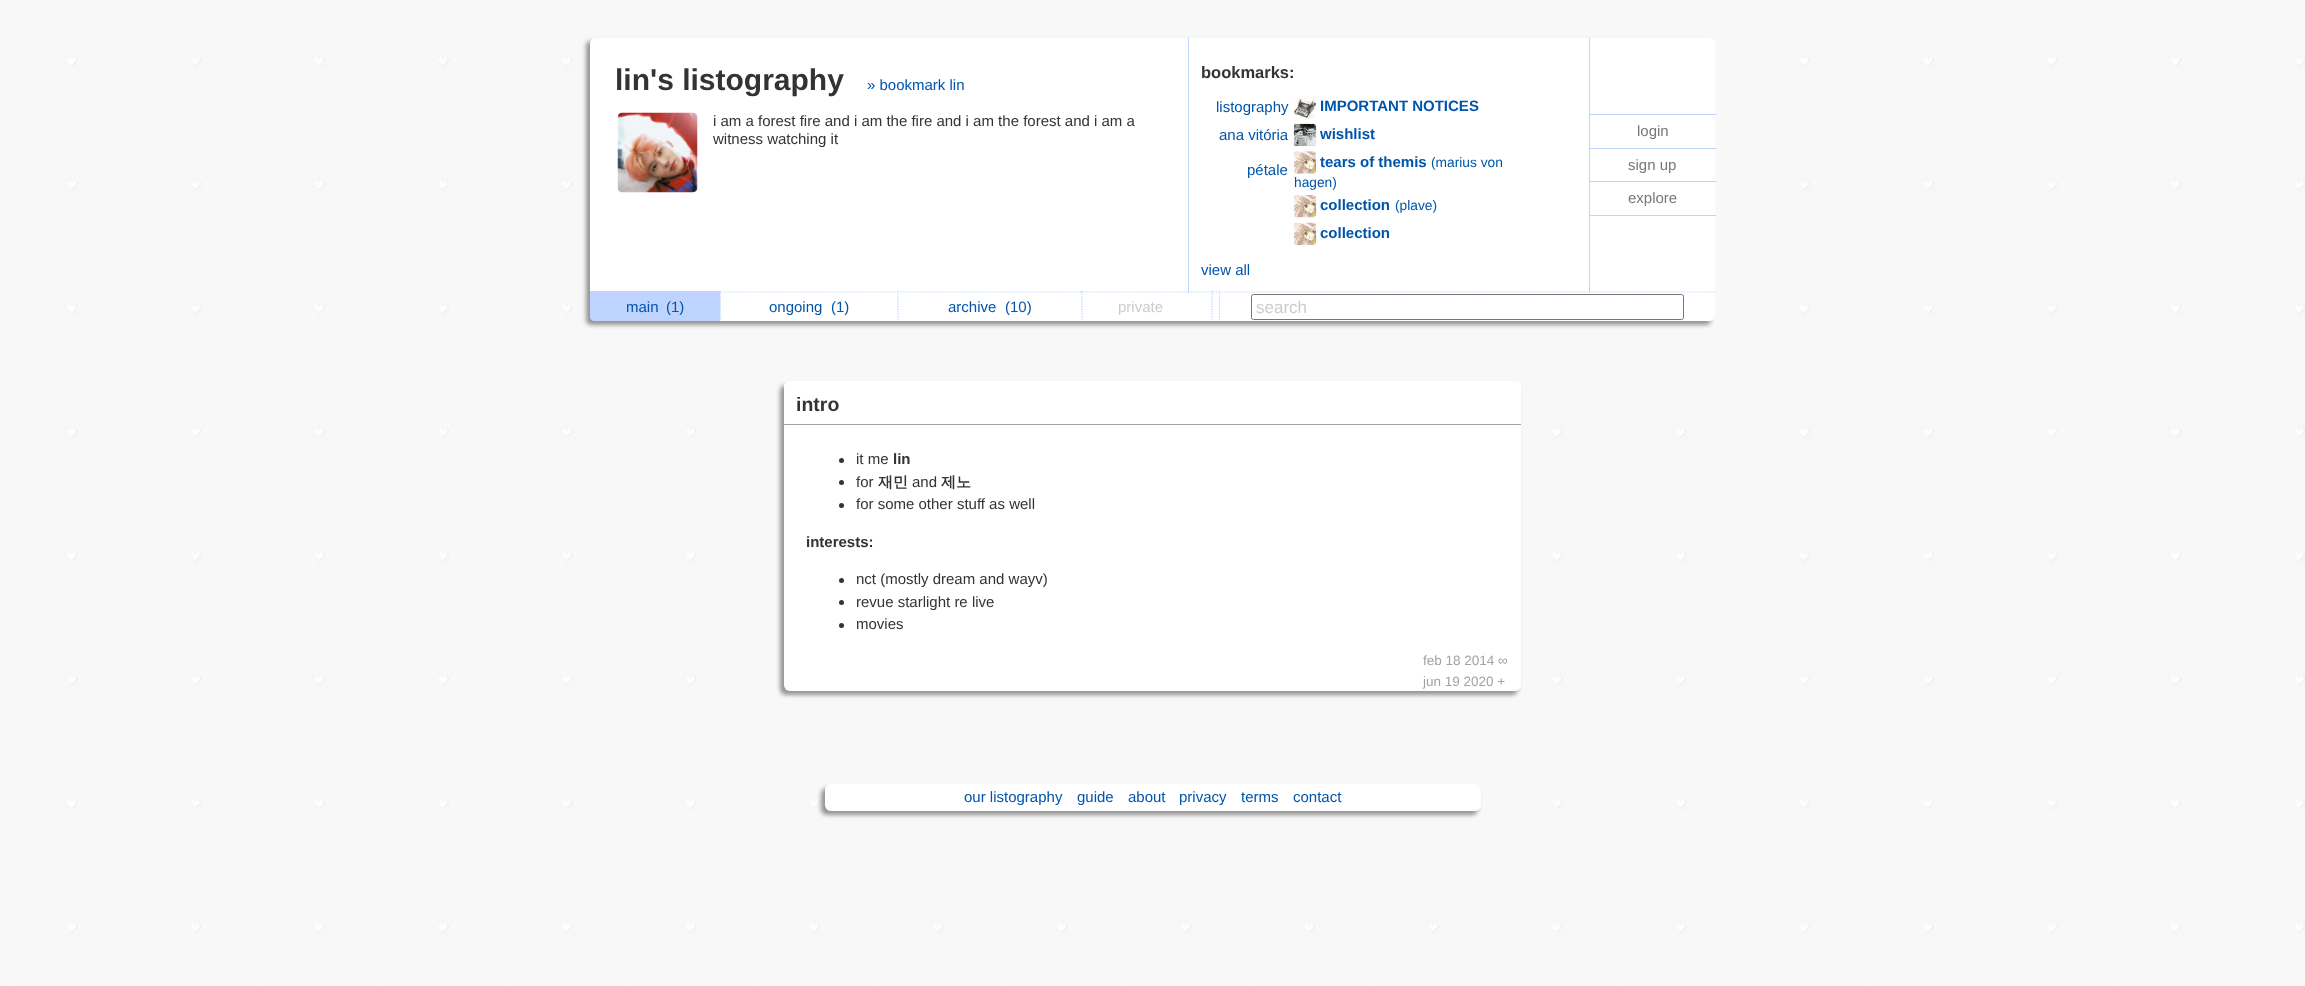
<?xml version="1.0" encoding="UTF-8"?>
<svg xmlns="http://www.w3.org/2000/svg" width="2305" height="986">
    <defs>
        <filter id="blur1" x="-50%" y="-200%" width="200%" height="500%"><feGaussianBlur stdDeviation="2"/></filter>
    </defs>
    <rect width="100%" height="100%" fill="#FFFFFF"/>
    <image x="0" y="0" width="2305" height="986" href="img_01.png"/>
    <rect x="586" y="41" width="1125" height="284" rx="5" fill="#000000" fill-opacity="0.4" filter="url(#blur1)"/>
    <rect x="590" y="38" width="1125" height="283" rx="5" fill="#FFFFFF"/>
    <rect x="1188" y="38" width="1" height="255" fill="#BED4FF"/>
    <text x="615" y="90" font-family="Liberation Sans" font-size="30" font-weight="700" fill="#333333">lin's listography</text>
    <text x="867" y="90" font-family="Liberation Sans" font-size="15" fill="#0055AA">» bookmark lin</text>
    <image x="617" y="112" width="81" height="81" href="img_02.png"/>
    <text font-family="Liberation Sans" font-size="15" fill="#333333">
        <tspan x="713" y="126">i am a forest fire and i am the fire and i am the forest and i am a</tspan>
        <tspan x="713" y="144">witness watching it</tspan>
    </text>
    <text x="1201" y="78" font-family="Liberation Sans" font-size="16.5" font-weight="700" fill="#333333">bookmarks:</text>
    <text x="1216" y="112" font-family="Liberation Sans" font-size="15" fill="#0055AA">listography</text>
    <image x="1294" y="96" width="22" height="23" href="img_03.png"/>
    <text x="1320" y="111" font-family="Liberation Sans" font-size="15" font-weight="700" fill="#0055AA">IMPORTANT NOTICES</text>
    <text x="1219" y="140" font-family="Liberation Sans" font-size="15" fill="#0055AA">ana vitória</text>
    <image x="1293" y="123" width="24" height="24" href="img_04.png"/>
    <text x="1320" y="139" font-family="Liberation Sans" font-size="15" font-weight="700" fill="#0055AA">wishlist</text>
    <text x="1247" y="175" font-family="Liberation Sans" font-size="15" fill="#0055AA">pétale</text>
    <image x="1293" y="151" width="24" height="23" href="img_05.png"/>
    <text x="1320" y="167" font-family="Liberation Sans" font-size="15" font-weight="700" fill="#0055AA">tears of themis</text>
    <text x="1431" y="167" font-family="Liberation Sans" font-size="13.75" fill="#0055AA">(marius von</text>
    <text x="1294" y="187" font-family="Liberation Sans" font-size="13.75" fill="#0055AA">hagen)</text>
    <image x="1293" y="195" width="24" height="23" href="img_06.png"/>
    <text x="1320" y="210" font-family="Liberation Sans" font-size="15" font-weight="700" fill="#0055AA">collection</text>
    <text x="1395" y="210" font-family="Liberation Sans" font-size="13.75" fill="#0055AA">(plave)</text>
    <image x="1293" y="222" width="24" height="23" href="img_07.png"/>
    <text x="1320" y="238" font-family="Liberation Sans" font-size="15" font-weight="700" fill="#0055AA">collection</text>
    <text x="1201" y="275" font-family="Liberation Sans" font-size="15" fill="#0055AA">view all</text>
    <rect x="1589" y="38" width="1" height="255" fill="#BED4FF"/>
    <rect x="1590" y="114" width="126" height="1" fill="#BED4FF"/>
    <text x="1637" y="136" font-family="Liberation Sans" font-size="15" fill="#777777">login</text>
    <rect x="1590" y="148" width="126" height="1" fill="#BED4FF"/>
    <text x="1628" y="170" font-family="Liberation Sans" font-size="15" fill="#777777">sign up</text>
    <rect x="1590" y="181" width="126" height="1" fill="#BED4FF"/>
    <rect x="1590" y="215" width="126" height="1" fill="#BED4FF"/>
    <text x="1628" y="203" font-family="Liberation Sans" font-size="15" fill="#777777">explore</text>
    <path d="M 590 291 H 720 V 321 H 595 C 592 321 590 319 590 316 Z" fill="#BED4FF"/>
    <text x="626" y="312" font-family="Liberation Sans" font-size="15" fill="#0055AA">main</text>
    <text x="666" y="312" font-family="Liberation Sans" font-size="15" fill="#0055AA">(1)</text>
    <path d="M 720 292 H 897.5" fill="none" stroke="#BED4FF" stroke-width="1.2" stroke-dasharray="1.25 1.25"/>
    <path d="M 720.5 291 V 321" fill="none" stroke="#BED4FF" stroke-width="1.2" stroke-dasharray="1.25 1.25"/>
    <text x="769" y="312" font-family="Liberation Sans" font-size="15" fill="#0055AA">ongoing</text>
    <text x="831" y="312" font-family="Liberation Sans" font-size="15" fill="#0055AA">(1)</text>
    <path d="M 897.5 292 H 1081" fill="none" stroke="#BED4FF" stroke-width="1.2" stroke-dasharray="1.25 1.25"/>
    <path d="M 898 291 V 321" fill="none" stroke="#BED4FF" stroke-width="1.2" stroke-dasharray="1.25 1.25"/>
    <text x="948" y="312" font-family="Liberation Sans" font-size="15" fill="#0055AA">archive</text>
    <text x="1005" y="312" font-family="Liberation Sans" font-size="15" fill="#0055AA">(10)</text>
    <path d="M 1081 292 H 1211" fill="none" stroke="#BED4FF" stroke-width="1.2" stroke-dasharray="1.25 1.25"/>
    <path d="M 1082 291 V 321" fill="none" stroke="#BED4FF" stroke-width="1.2" stroke-dasharray="1.25 1.25"/>
    <text x="1118" y="312" font-family="Liberation Sans" font-size="15" fill="#CCCCCC">private</text>
    <path d="M 1211 292 H 1212.5 M 1213.5 292 H 1215 M 1216 292 H 1217.5" fill="none" stroke="#BED4FF" stroke-width="1.2"/>
    <path d="M 1212 291 V 321" fill="none" stroke="#BED4FF" stroke-width="1.2" stroke-dasharray="1.25 1.25"/>
    <path d="M 1219 292 H 1715" fill="none" stroke="#BED4FF" stroke-width="1.2" stroke-dasharray="1.25 1.25"/>
    <path d="M 1219.5 291 V 321" fill="none" stroke="#BED4FF" stroke-width="1.2" stroke-dasharray="1.25 1.25"/>
    <rect x="1251.5" y="294.5" width="432" height="25" rx="2" fill="none" stroke="#767676"/>
    <text x="1256" y="313" font-family="Liberation Sans" font-size="17" fill="#CCCCCC">search</text>
    <rect x="780" y="385" width="738" height="310" rx="6" fill="#000000" fill-opacity="0.4" filter="url(#blur1)"/>
    <rect x="784" y="381" width="737" height="310" rx="6" fill="#FFFFFF"/>
    <path d="M 790 381 H 1515 C 1518.5 381 1521 383.5 1521 387 V 425 H 784 V 387 C 784 383.5 786.5 381 790 381 Z" fill="#FFFFFF"/>
    <rect x="784" y="424" width="737" height="1" fill="#A3A3A3"/>
    <text x="796" y="411" font-family="Liberation Sans" font-size="19.5" font-weight="700" fill="#333333">intro</text>
    <circle cx="841.5" cy="460.5" r="2.5" fill="#333333"/>
    <text x="856" y="464" font-family="Liberation Sans" font-size="15" fill="#333333">it me</text>
    <text x="893" y="464" font-family="Liberation Sans" font-size="15" font-weight="700" fill="#333333">lin</text>
    <circle cx="841.5" cy="482.5" r="2.5" fill="#333333"/>
    <text x="856" y="487" font-family="Liberation Sans" font-size="15" fill="#333333">for</text>
    <text x="878" y="487" font-family="WenQuanYi Zen Hei" font-size="15" font-weight="700" fill="#333333">재민</text>
    <text x="912" y="487" font-family="Liberation Sans" font-size="15" fill="#333333">and</text>
    <text x="941" y="487" font-family="WenQuanYi Zen Hei" font-size="15" font-weight="700" fill="#333333">제노</text>
    <circle cx="841.5" cy="505.5" r="2.5" fill="#333333"/>
    <text x="856" y="509" font-family="Liberation Sans" font-size="15" fill="#333333">for some other stuff as well</text>
    <text x="806" y="547" font-family="Liberation Sans" font-size="15" font-weight="700" fill="#333333">interests:</text>
    <circle cx="841.5" cy="580.5" r="2.5" fill="#333333"/>
    <text x="856" y="584" font-family="Liberation Sans" font-size="15" fill="#333333">nct (mostly dream and wayv)</text>
    <circle cx="841.5" cy="602.5" r="2.5" fill="#333333"/>
    <text x="856" y="607" font-family="Liberation Sans" font-size="15" fill="#333333">revue starlight re live</text>
    <circle cx="841.5" cy="625.5" r="2.5" fill="#333333"/>
    <text x="856" y="629" font-family="Liberation Sans" font-size="15" fill="#333333">movies</text>
    <text font-family="Liberation Sans" font-size="13.5" fill="#A3A3A3">
        <tspan x="1423" y="665">feb 18 2014 ∞</tspan>
        <tspan x="1423" y="686">jun 19 2020 +</tspan>
    </text>
    <rect x="821" y="788" width="657" height="27" rx="6" fill="#000000" fill-opacity="0.4" filter="url(#blur1)"/>
    <rect x="825" y="784" width="656" height="27" rx="6" fill="#FFFFFF"/>
    <text x="964" y="802" font-family="Liberation Sans" font-size="15" fill="#0055AA">our listography</text>
    <text x="1077" y="802" font-family="Liberation Sans" font-size="15" fill="#0055AA">guide</text>
    <text x="1128" y="802" font-family="Liberation Sans" font-size="15" fill="#0055AA">about</text>
    <text x="1179" y="802" font-family="Liberation Sans" font-size="15" fill="#0055AA">privacy</text>
    <text x="1241" y="802" font-family="Liberation Sans" font-size="15" fill="#0055AA">terms</text>
    <text x="1293" y="802" font-family="Liberation Sans" font-size="15" fill="#0055AA">contact</text>
</svg>
